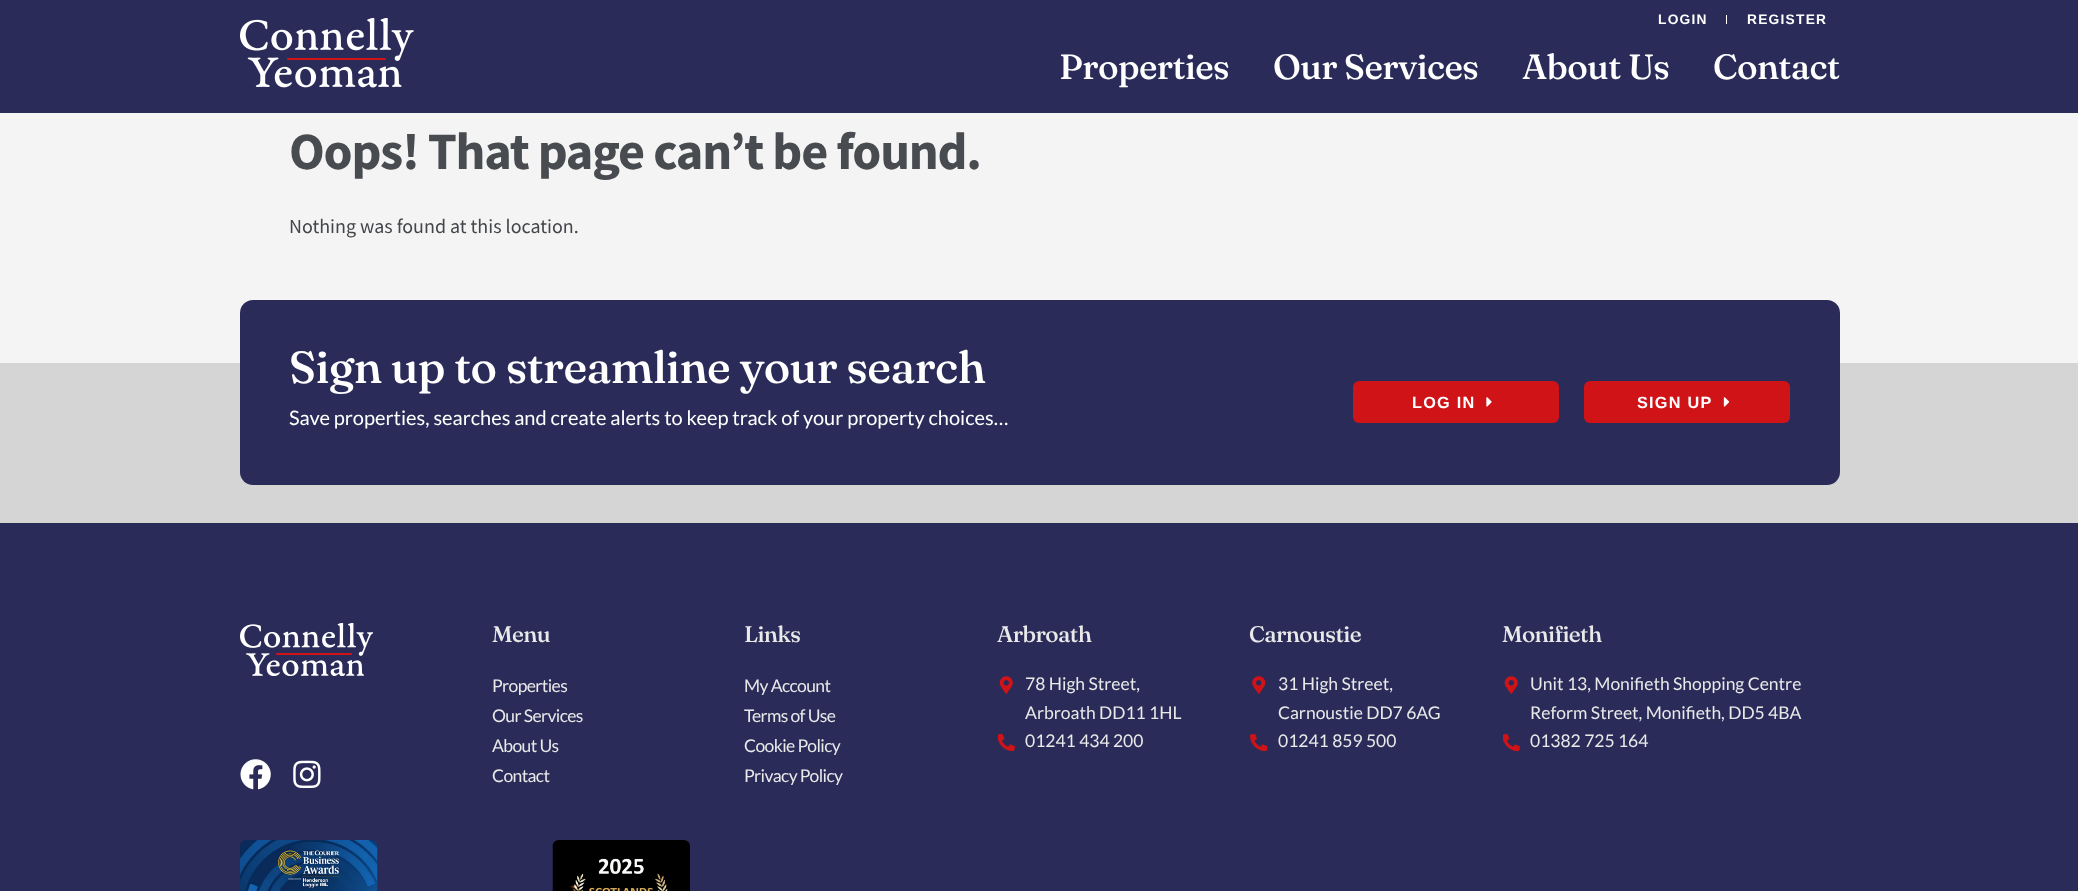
<?xml version="1.0" encoding="UTF-8"?>
<svg xmlns="http://www.w3.org/2000/svg" width="2078" height="891">
    <rect width="100%" height="100%" fill="#F4F4F4"/>
    <rect x="0" y="0" width="2078" height="113" fill="#2A2B58"/>
    <image x="240" y="18" width="174" height="70" href="img_01.png"/>
    <text x="1658" y="24" font-family="Liberation Sans" font-size="13.75" font-weight="700" letter-spacing="1.25" fill="#FFFFFF">LOGIN</text>
    <rect x="1726" y="15" width="1" height="9" fill="#FFFFFF"/>
    <text x="1747" y="24" font-family="Liberation Sans" font-size="13.75" font-weight="700" letter-spacing="1.25" fill="#FFFFFF">REGISTER</text>
    <text x="1059" y="79" font-family="Fraunces" font-size="35" font-weight="500" letter-spacing="-0.6" fill="#FFFFFF">Properties</text>
    <text x="1273" y="79" font-family="Fraunces" font-size="35" font-weight="500" letter-spacing="-0.6" fill="#FFFFFF">Our Services</text>
    <text x="1522" y="79" font-family="Fraunces" font-size="35" font-weight="500" letter-spacing="-0.6" fill="#FFFFFF">About Us</text>
    <text x="1713" y="79" font-family="Fraunces" font-size="35" font-weight="500" letter-spacing="-0.6" fill="#FFFFFF">Contact</text>
    <text x="289" y="169" font-family="Source Sans Pro" font-size="52.4" font-weight="700" letter-spacing="-1.25" fill="#484C51">Oops! That page can’t be found.</text>
    <text x="289" y="233" font-family="Source Sans Pro" font-size="20" fill="#43454B">Nothing was found at this location.</text>
    <rect x="0" y="363" width="2078" height="160" fill="#D5D5D5"/>
    <rect x="240" y="300" width="1600" height="185" rx="13" fill="#2A2B58"/>
    <text x="289" y="383" font-family="Fraunces" font-size="45" font-weight="500" letter-spacing="-0.6" fill="#FFFFFF">Sign up to streamline your search</text>
    <text x="289" y="425" font-family="Lato" font-size="20" fill="#FFFFFF">Save properties, searches and create alerts to keep track of your property choices…</text>
    <rect x="1353" y="381" width="206" height="42" rx="6" fill="#D01317"/>
    <text x="1412" y="408" font-family="Liberation Sans" font-size="16.25" font-weight="700" letter-spacing="1.25" fill="#FFFFFF">LOG IN</text>
    <image x="1486" y="397" width="6" height="10" href="img_02.png"/>
    <rect x="1584" y="381" width="206" height="42" rx="6" fill="#D01317"/>
    <text x="1637" y="408" font-family="Liberation Sans" font-size="16.25" font-weight="700" letter-spacing="1.25" fill="#FFFFFF">SIGN UP</text>
    <image x="1723" y="397" width="7" height="10" href="img_03.png"/>
    <rect x="0" y="523" width="2078" height="368" fill="#2A2B58"/>
    <image x="240" y="623" width="133" height="53" href="img_04.png"/>
    <image x="240" y="759" width="31" height="31" href="img_05.png"/>
    <image x="293" y="760" width="28" height="29" href="img_06.png"/>
    <text x="492" y="642" font-family="Fraunces" font-size="22.5" font-weight="500" letter-spacing="-0.6" fill="#E9E9E9">Menu</text>
    <text font-family="Lato" font-size="17.5" letter-spacing="-0.6" fill="#E9E9E9">
        <tspan x="492" y="692">Properties</tspan>
        <tspan x="492" y="722">Our Services</tspan>
        <tspan x="492" y="752">About Us</tspan>
        <tspan x="492" y="782">Contact</tspan>
    </text>
    <text x="744" y="642" font-family="Fraunces" font-size="22.5" font-weight="500" letter-spacing="-0.6" fill="#E9E9E9">Links</text>
    <text font-family="Lato" font-size="17.5" letter-spacing="-0.6" fill="#E9E9E9">
        <tspan x="744" y="692">My Account</tspan>
        <tspan x="744" y="722">Terms of Use</tspan>
        <tspan x="744" y="752">Cookie Policy</tspan>
        <tspan x="744" y="782">Privacy Policy</tspan>
    </text>
    <text x="997" y="642" font-family="Fraunces" font-size="22.5" font-weight="500" letter-spacing="-0.6" fill="#E9E9E9">Arbroath</text>
    <image x="999" y="676" width="14" height="18" href="img_07.png"/>
    <text font-family="Lato" font-size="17.5" fill="#E9E9E9">
        <tspan x="1025" y="690">78 High Street,</tspan>
        <tspan x="1025" y="719">Arbroath DD11 1HL</tspan>
    </text>
    <image x="998" y="734" width="17" height="17" href="img_08.png"/>
    <text x="1025" y="747" font-family="Lato" font-size="17.5" fill="#E9E9E9">01241 434 200</text>
    <text x="1249" y="642" font-family="Fraunces" font-size="22.5" font-weight="500" letter-spacing="-0.6" fill="#E9E9E9">Carnoustie</text>
    <image x="1252" y="676" width="14" height="18" href="img_09.png"/>
    <text font-family="Lato" font-size="17.5" fill="#E9E9E9">
        <tspan x="1278" y="690">31 High Street,</tspan>
        <tspan x="1278" y="719">Carnoustie DD7 6AG</tspan>
    </text>
    <image x="1250" y="734" width="18" height="17" href="img_10.png"/>
    <text x="1278" y="747" font-family="Lato" font-size="17.5" fill="#E9E9E9">01241 859 500</text>
    <text x="1502" y="642" font-family="Fraunces" font-size="22.5" font-weight="500" letter-spacing="-0.6" fill="#E9E9E9">Monifieth</text>
    <image x="1504" y="676" width="14" height="18" href="img_07.png"/>
    <text font-family="Lato" font-size="17.5" fill="#E9E9E9">
        <tspan x="1530" y="690">Unit 13, Monifieth Shopping Centre</tspan>
        <tspan x="1530" y="719">Reform Street, Monifieth, DD5 4BA</tspan>
    </text>
    <image x="1503" y="734" width="17" height="17" href="img_08.png"/>
    <text x="1530" y="747" font-family="Lato" font-size="17.5" fill="#E9E9E9">01382 725 164</text>
    <image x="240" y="840" width="138" height="51" href="img_11.png"/>
    <image x="552" y="840" width="138" height="51" href="img_12.png"/>
</svg>
